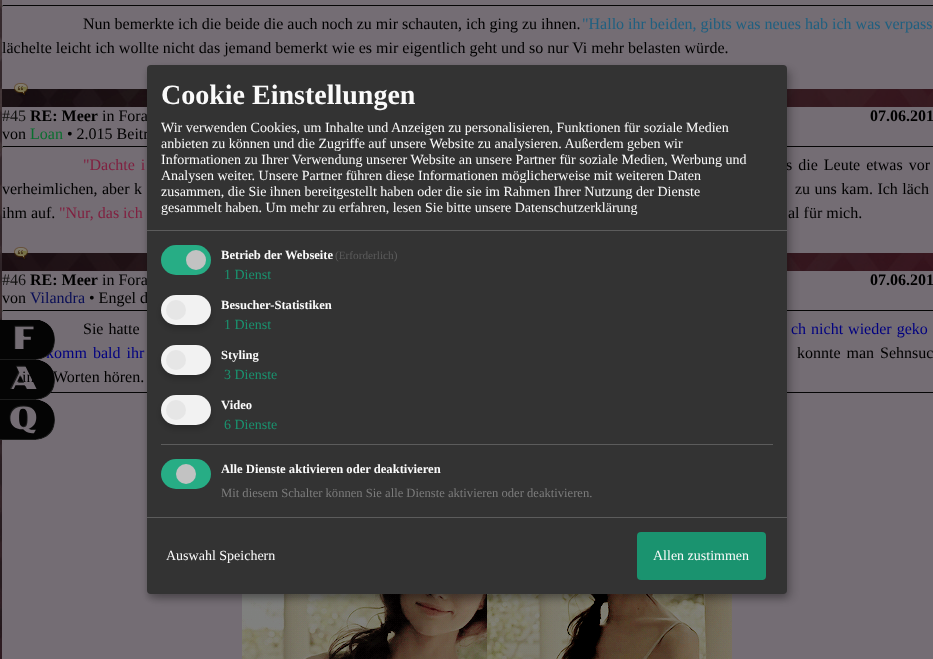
<?xml version="1.0" encoding="UTF-8"?>
<svg xmlns="http://www.w3.org/2000/svg" width="933" height="659">
    <defs>
        <filter id="blur1" x="-50%" y="-200%" width="200%" height="500%"><feGaussianBlur stdDeviation="5"/></filter>
        <filter id="blur2" x="-50%" y="-200%" width="200%" height="500%"><feGaussianBlur stdDeviation="3"/></filter>
    </defs>
    <rect width="100%" height="100%" fill="#FFFFFF"/>
    <image x="0" y="0" width="933" height="659" href="img_01.png"/>
    <image x="2" y="89" width="931" height="182" href="img_02.png"/>
    <rect x="2" y="0" width="931" height="89" fill="#746D74"/>
    <rect x="2" y="5" width="931" height="1" fill="#050505"/>
    <rect x="2" y="5" width="1" height="2" fill="#505050"/>
    <text x="83" y="29" font-family="Liberation Serif" font-size="16" fill="#000000">Nun bemerkte ich die beide die auch noch zu mir schauten, ich ging zu ihnen.</text>
    <text x="582" y="29" font-family="Liberation Serif" font-size="16" fill="#206080">"Hallo ihr beiden, gibts was neues hab ich was verpass</text>
    <text x="2" y="53" font-family="Liberation Serif" font-size="16" fill="#000000">lächelte leicht ich wollte nicht das jemand bemerkt wie es mir eigentlich geht und so nur Vi mehr belasten würde.</text>
    <image x="14" y="83" width="14" height="13" href="img_03.png"/>
    <rect x="2" y="107" width="931" height="146" fill="#746D74"/>
    <text x="2" y="121" font-family="Liberation Serif" font-size="16" fill="#111110">#45</text>
    <text x="30" y="121" font-family="Liberation Serif" font-size="16" font-weight="700" fill="#000000">RE: Meer</text>
    <text x="102" y="121" font-family="Liberation Serif" font-size="16" fill="#000000">in Fora</text>
    <text x="870" y="121" font-family="Liberation Serif" font-size="16" font-weight="700" fill="#000000">07.06.201</text>
    <text x="2" y="139" font-family="Liberation Serif" font-size="16" fill="#000000">von</text>
    <text x="30" y="139" font-family="Liberation Serif" font-size="16" fill="#0A6F2F">Loan</text>
    <text x="67" y="139" font-family="Liberation Serif" font-size="16" fill="#000000">• 2.015 Beitr</text>
    <rect x="2" y="146" width="931" height="1" fill="#050505"/>
    <rect x="2" y="146" width="1" height="2" fill="#505050"/>
    <text x="83" y="170" word-spacing="2" font-family="Liberation Serif" font-size="16" fill="#802040">"Dachte i</text>
    <text x="786" y="170" word-spacing="2" font-family="Liberation Serif" font-size="16" fill="#000000">s die Leute etwas vor</text>
    <text x="2" y="194" word-spacing="0.5" font-family="Liberation Serif" font-size="16" fill="#000000">verheimlichen, aber k</text>
    <text x="795" y="194" word-spacing="0.5" font-family="Liberation Serif" font-size="16" fill="#000000">zu uns kam. Ich läch</text>
    <text x="2" y="218" font-family="Liberation Serif" font-size="16" fill="#000000">ihm auf.</text>
    <text x="59" y="218" font-family="Liberation Serif" font-size="16" fill="#802040">"Nur, das ich</text>
    <text x="788" y="218" font-family="Liberation Serif" font-size="16" fill="#000000">al für mich.</text>
    <image x="14" y="247" width="14" height="13" href="img_04.png"/>
    <rect x="2" y="271" width="931" height="388" fill="#746D74"/>
    <text x="2" y="285" font-family="Liberation Serif" font-size="16" fill="#111110">#46</text>
    <text x="30" y="285" font-family="Liberation Serif" font-size="16" font-weight="700" fill="#000000">RE: Meer</text>
    <text x="102" y="285" font-family="Liberation Serif" font-size="16" fill="#000000">in Fora</text>
    <text x="870" y="285" font-family="Liberation Serif" font-size="16" font-weight="700" fill="#000000">07.06.201</text>
    <text x="2" y="303" font-family="Liberation Serif" font-size="16" fill="#000000">von</text>
    <text x="30" y="303" font-family="Liberation Serif" font-size="16" fill="#090E56">Vilandra</text>
    <text x="89" y="303" font-family="Liberation Serif" font-size="16" fill="#000000">• Engel d</text>
    <rect x="2" y="310" width="931" height="1" fill="#050505"/>
    <rect x="2" y="310" width="1" height="2" fill="#505050"/>
    <text x="83" y="334" word-spacing="1" font-family="Liberation Serif" font-size="16" fill="#000000">Sie hatte</text>
    <text x="791" y="334" word-spacing="1" font-family="Liberation Serif" font-size="16" fill="#000080">ch nicht wieder geko</text>
    <text x="46" y="358" word-spacing="2" font-family="Liberation Serif" font-size="16" fill="#000080">komm bald ihr</text>
    <text x="797" y="358" word-spacing="2" font-family="Liberation Serif" font-size="16" fill="#000000">konnte man Sehnsuc</text>
    <text x="22" y="382" font-family="Liberation Serif" font-size="16" fill="#000000">in</text>
    <text x="53" y="382" font-family="Liberation Serif" font-size="16" fill="#000000">Worten hören.</text>
    <rect x="50" y="392" width="883" height="1" fill="#050505"/>
    <image x="242" y="594" width="245" height="65" href="img_05.png"/>
    <image x="487" y="594" width="245" height="65" href="img_06.png"/>
    <image x="0" y="320" width="55" height="40" href="img_07.png"/>
    <image x="0" y="360" width="55" height="40" href="img_08.png"/>
    <image x="0" y="400" width="55" height="40" href="img_09.png"/>
    <rect x="152" y="70" width="640" height="529" rx="4" fill="#000000" fill-opacity="0.19" filter="url(#blur1)"/>
    <rect x="147" y="69" width="640" height="529" rx="4" fill="#000000" fill-opacity="0.2" filter="url(#blur2)"/>
    <rect x="147" y="65" width="640" height="529" rx="4" fill="#333333"/>
    <rect x="147" y="230" width="640" height="1" fill="#5C5C5C"/>
    <text x="161" y="104" font-family="Liberation Serif" font-size="28" font-weight="700" fill="#FAFAFA">Cookie Einstellungen</text>
    <text font-family="Liberation Serif" font-size="14" fill="#FAFAFA">
        <tspan x="161" y="132">Wir verwenden Cookies, um Inhalte und Anzeigen zu personalisieren, Funktionen für soziale Medien</tspan>
        <tspan x="161" y="148">anbieten zu können und die Zugriffe auf unsere Website zu analysieren. Außerdem geben wir</tspan>
        <tspan x="161" y="164">Informationen zu Ihrer Verwendung unserer Website an unsere Partner für soziale Medien, Werbung und</tspan>
        <tspan x="161" y="180">Analysen weiter. Unsere Partner führen diese Informationen möglicherweise mit weiteren Daten</tspan>
        <tspan x="161" y="196">zusammen, die Sie ihnen bereitgestellt haben oder die sie im Rahmen Ihrer Nutzung der Dienste</tspan>
        <tspan x="161" y="212">gesammelt haben. Um mehr zu erfahren, lesen Sie bitte unsere Datenschutzerklärung</tspan>
    </text>
    <rect x="161" y="245" width="50" height="30" rx="15" fill="#27AD85"/>
    <circle cx="196" cy="260" r="10" fill="#C2C2C2"/>
    <text x="221" y="259" font-family="Liberation Serif" font-size="12.6" font-weight="700" fill="#FAFAFA">Betrieb der Webseite</text>
    <text x="335" y="259" font-family="Liberation Serif" font-size="11.25" fill="#5C5C5C">(Erforderlich)</text>
    <text x="224" y="279" font-family="Liberation Serif" font-size="14" fill="#1A936F">1 Dienst</text>
    <rect x="161" y="299" width="50" height="30" rx="15" fill="#000000" fill-opacity="0.2" filter="url(#blur2)"/>
    <rect x="161" y="295" width="50" height="30" rx="15" fill="#F2F2F2"/>
    <circle cx="176" cy="310" r="10" fill="#E6E6E6"/>
    <text x="221" y="309" font-family="Liberation Serif" font-size="12.6" font-weight="700" fill="#FAFAFA">Besucher-Statistiken</text>
    <text x="224" y="329" font-family="Liberation Serif" font-size="14" fill="#1A936F">1 Dienst</text>
    <rect x="161" y="349" width="50" height="30" rx="15" fill="#000000" fill-opacity="0.2" filter="url(#blur2)"/>
    <rect x="161" y="345" width="50" height="30" rx="15" fill="#F2F2F2"/>
    <circle cx="176" cy="360" r="10" fill="#E6E6E6"/>
    <text x="221" y="359" font-family="Liberation Serif" font-size="12.6" font-weight="700" fill="#FAFAFA">Styling</text>
    <text x="224" y="379" font-family="Liberation Serif" font-size="14" fill="#1A936F">3 Dienste</text>
    <rect x="161" y="399" width="50" height="30" rx="15" fill="#000000" fill-opacity="0.2" filter="url(#blur2)"/>
    <rect x="161" y="395" width="50" height="30" rx="15" fill="#F2F2F2"/>
    <circle cx="176" cy="410" r="10" fill="#E6E6E6"/>
    <text x="221" y="409" font-family="Liberation Serif" font-size="12.6" font-weight="700" fill="#FAFAFA">Video</text>
    <text x="224" y="429" font-family="Liberation Serif" font-size="14" fill="#1A936F">6 Dienste</text>
    <rect x="161" y="444" width="612" height="1" fill="#5C5C5C"/>
    <rect x="161" y="459" width="50" height="30" rx="15" fill="#27AD85"/>
    <circle cx="186" cy="474" r="10" fill="#C2C2C2"/>
    <text x="221" y="473" font-family="Liberation Serif" font-size="12.6" font-weight="700" fill="#FAFAFA">Alle Dienste aktivieren oder deaktivieren</text>
    <text x="221" y="497" font-family="Liberation Serif" font-size="12.6" fill="#7C7C7C">Mit diesem Schalter können Sie alle Dienste aktivieren oder deaktivieren.</text>
    <rect x="147" y="517" width="640" height="1" fill="#5C5C5C"/>
    <text x="166" y="560" font-family="Liberation Serif" font-size="14" fill="#FAFAFA">Auswahl Speichern</text>
    <rect x="637" y="532" width="129" height="48" rx="4" fill="#1A936F"/>
    <text x="653" y="560" font-family="Liberation Serif" font-size="14" fill="#FAFAFA">Allen zustimmen</text>
</svg>
